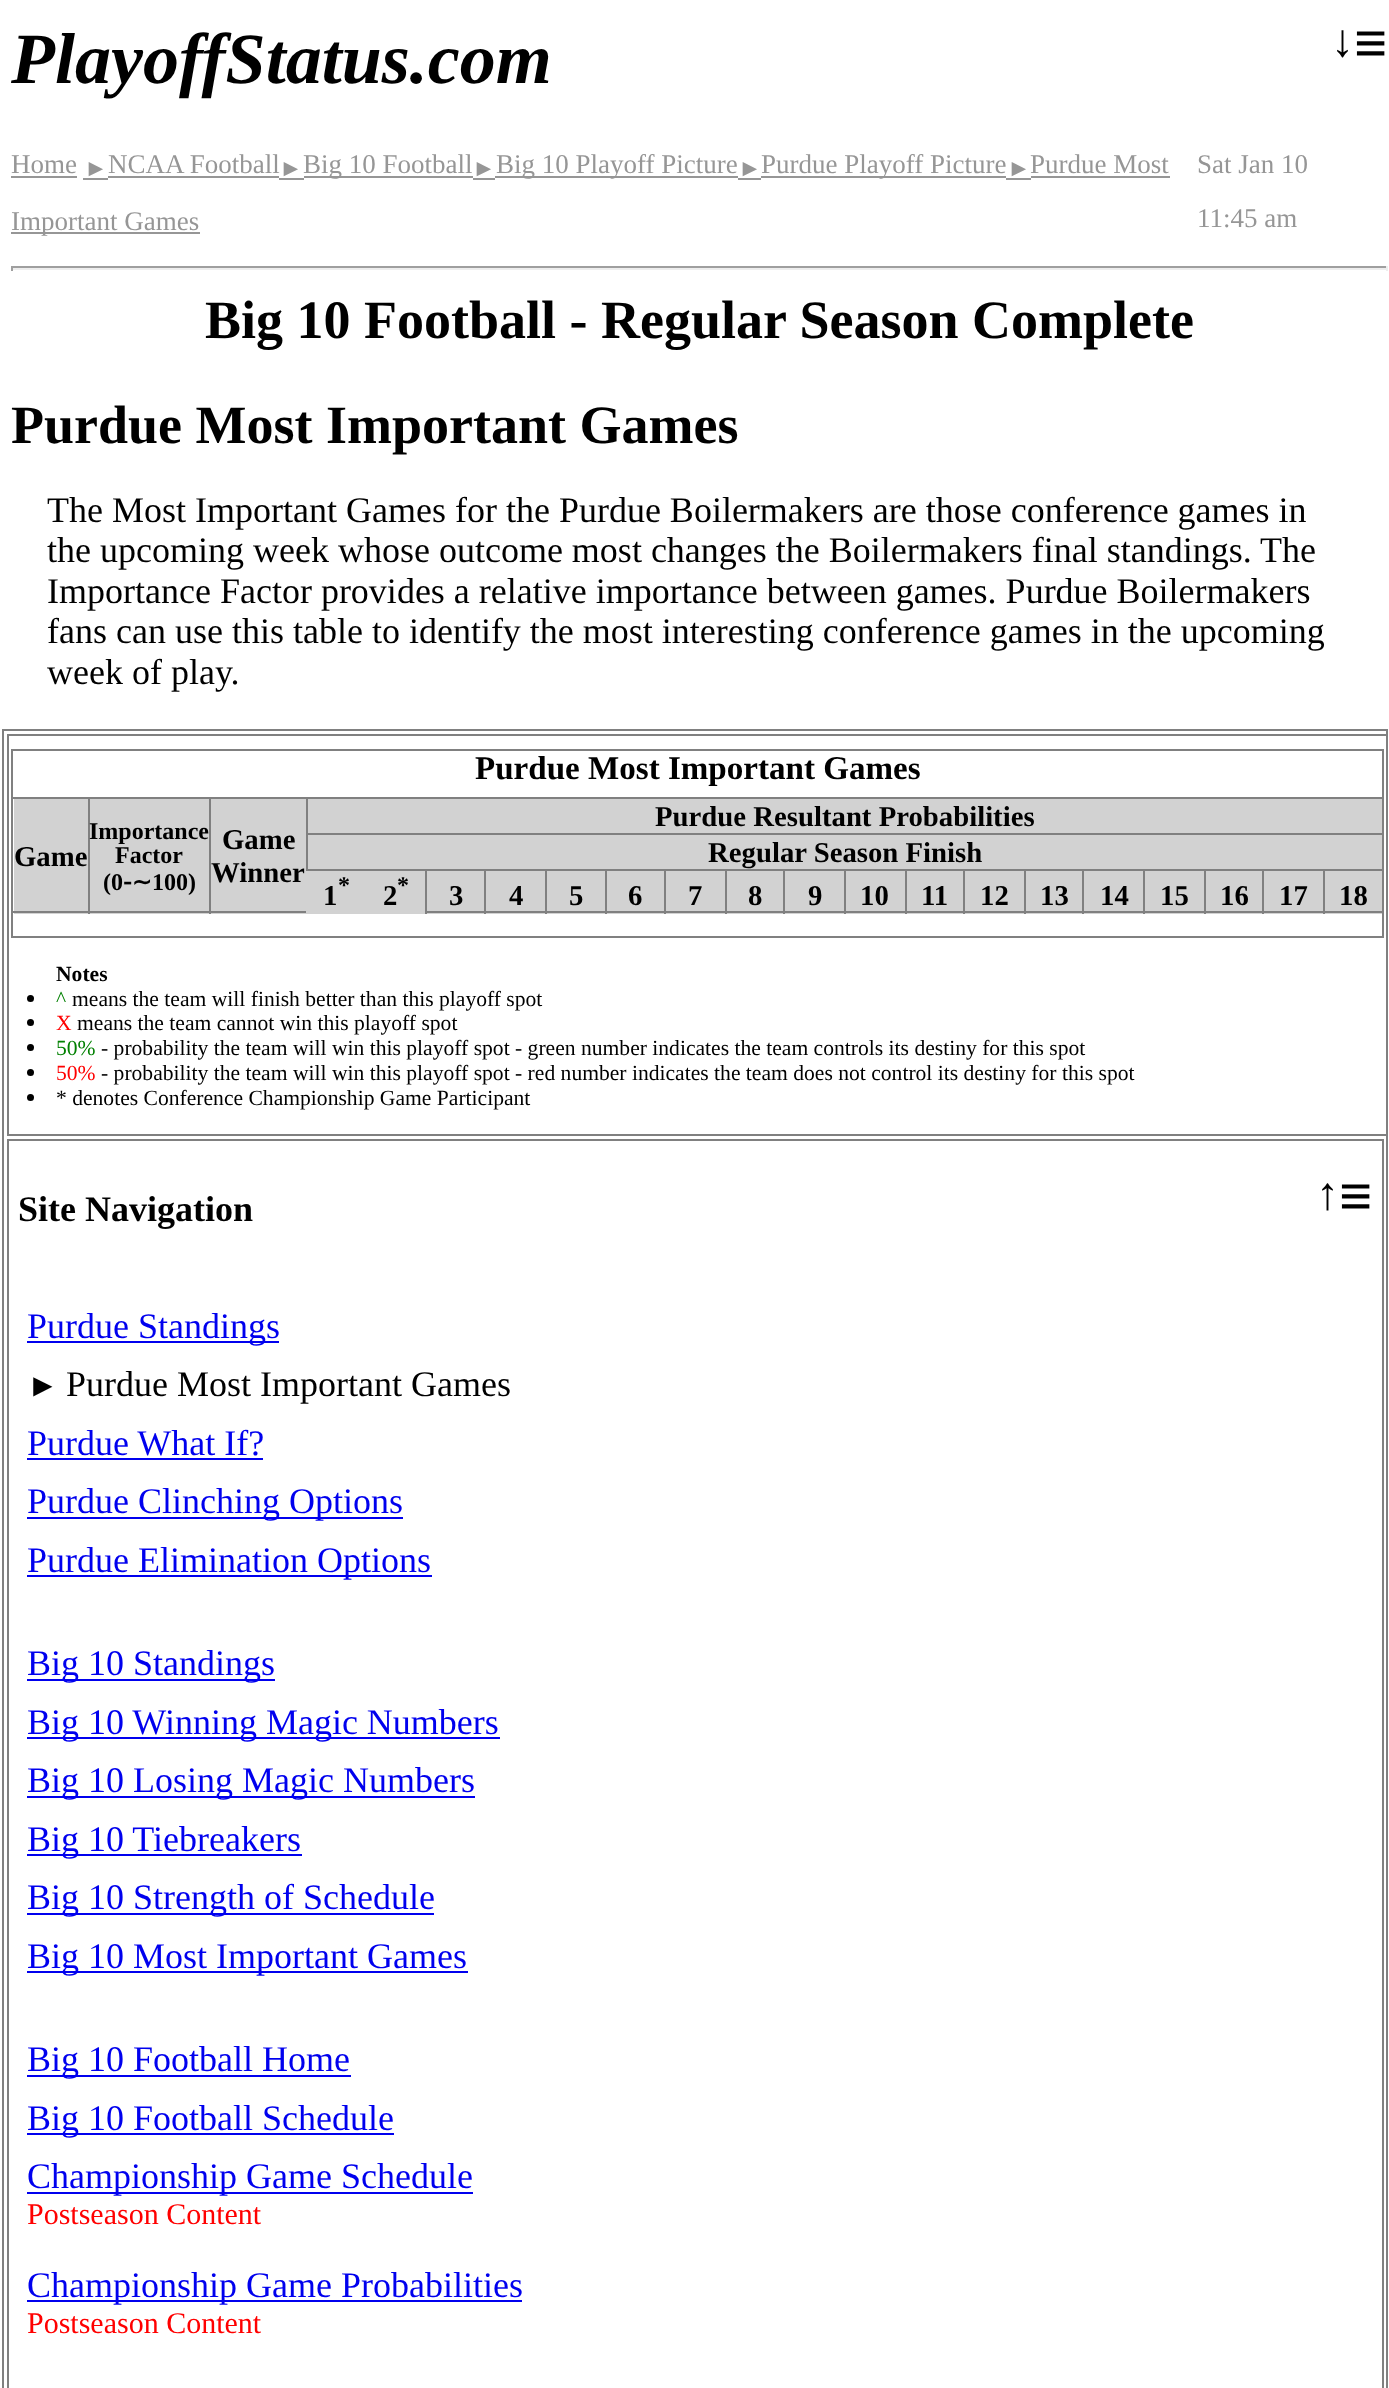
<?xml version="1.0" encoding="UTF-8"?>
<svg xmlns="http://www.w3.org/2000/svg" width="1389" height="2388">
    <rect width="100%" height="100%" fill="#FFFFFF"/>
    <text x="11" y="83" font-family="Liberation Serif" font-size="72" font-weight="700" font-style="italic" fill="#000000">PlayoffStatus.com</text>
    <text x="1331" y="56" font-family="Liberation Serif" font-size="46" font-weight="700" fill="#000000">↓</text>
    <text x="1354" y="63" font-family="Liberation Serif" font-size="59" font-weight="700" fill="#000000">≡</text>
    <text x="11" y="173" font-family="Liberation Serif" font-size="27" fill="#969696">Home</text>
    <rect x="11" y="176" width="66" height="2" fill="#969696"/>
    <text x="84" y="176" font-family="Liberation Serif" font-size="24" fill="#969696">►</text>
    <rect x="83" y="178" width="25" height="2" fill="#969696"/>
    <rect x="108" y="176" width="171" height="2" fill="#969696"/>
    <text x="108" y="173" font-family="Liberation Serif" font-size="27" fill="#969696">NCAA Football</text>
    <text x="279" y="176" font-family="Liberation Serif" font-size="24" fill="#969696">►</text>
    <rect x="279" y="178" width="25" height="2" fill="#969696"/>
    <rect x="304" y="176" width="169" height="2" fill="#969696"/>
    <text x="303" y="173" font-family="Liberation Serif" font-size="27" fill="#969696">Big 10 Football</text>
    <text x="472" y="176" font-family="Liberation Serif" font-size="24" fill="#969696">►</text>
    <rect x="473" y="178" width="22" height="2" fill="#969696"/>
    <rect x="495" y="176" width="243" height="2" fill="#969696"/>
    <text x="496" y="173" font-family="Liberation Serif" font-size="27" fill="#969696">Big 10 Playoff Picture</text>
    <text x="738" y="176" font-family="Liberation Serif" font-size="24" fill="#969696">►</text>
    <rect x="738" y="178" width="23" height="2" fill="#969696"/>
    <rect x="761" y="176" width="245" height="2" fill="#969696"/>
    <text x="761" y="173" font-family="Liberation Serif" font-size="27" fill="#969696">Purdue Playoff Picture</text>
    <text x="1007" y="176" font-family="Liberation Serif" font-size="24" fill="#969696">►</text>
    <rect x="1006" y="178" width="25" height="2" fill="#969696"/>
    <rect x="1031" y="176" width="139" height="2" fill="#969696"/>
    <text x="1030" y="173" font-family="Liberation Serif" font-size="27" fill="#969696">Purdue Most</text>
    <rect x="11" y="232" width="189" height="2" fill="#969696"/>
    <text x="11" y="230" font-family="Liberation Serif" font-size="27" fill="#969696">Important Games</text>
    <text x="1197" y="173" font-family="Liberation Serif" font-size="27" fill="#969696">Sat Jan 10</text>
    <text x="1197" y="227" font-family="Liberation Serif" font-size="27" fill="#969696">11:45 am</text>
    <rect x="11" y="266" width="1377" height="2" fill="#9F9F9F"/>
    <rect x="1386" y="266" width="2" height="5" fill="#EEEEEE"/>
    <rect x="11" y="268" width="1377" height="2" fill="#EEEEEE"/>
    <rect x="11" y="266" width="2" height="5" fill="#9F9F9F"/>
    <text x="205" y="338" font-family="Liberation Serif" font-size="54" font-weight="700" fill="#000000">Big 10 Football - Regular Season Complete</text>
    <text x="11" y="443" font-family="Liberation Serif" font-size="54" font-weight="700" fill="#000000">Purdue Most Important Games</text>
    <text font-family="Liberation Serif" font-size="36" fill="#000000">
        <tspan x="47" y="522">The Most Important Games for the Purdue Boilermakers are those conference games in</tspan>
        <tspan x="47" y="562">the upcoming week whose outcome most changes the Boilermakers final standings.</tspan>
    </text>
    <text x="1260" y="562" font-family="Liberation Serif" font-size="36" fill="#000000">The</text>
    <text font-family="Liberation Serif" font-size="36" fill="#000000">
        <tspan x="47" y="603">Importance Factor provides a relative importance between games. Purdue Boilermakers</tspan>
        <tspan x="47" y="643">fans can use this table to identify the most interesting conference games in the upcoming</tspan>
        <tspan x="47" y="684">week of play.</tspan>
    </text>
    <rect x="3" y="730" width="1384" height="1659" fill="none" stroke="#808080" stroke-width="2"/>
    <rect x="8" y="735" width="1379" height="400" fill="none" stroke="#808080" stroke-width="2"/>
    <rect x="11" y="749" width="1373" height="2" fill="#808080"/>
    <rect x="1382" y="749" width="2" height="189" fill="#808080"/>
    <rect x="11" y="936" width="1373" height="2" fill="#808080"/>
    <rect x="11" y="749" width="2" height="189" fill="#808080"/>
    <text x="475" y="779" font-family="Liberation Serif" font-size="33.1" font-weight="700" fill="#000000">Purdue Most Important Games</text>
    <rect x="308" y="799" width="1074" height="34" fill="#D2D2D2"/>
    <rect x="306" y="797" width="1078" height="2" fill="#808080"/>
    <rect x="306" y="833" width="1078" height="2" fill="#808080"/>
    <rect x="1323" y="869" width="61" height="2" fill="#808080"/>
    <rect x="1325" y="871" width="57" height="43" fill="#D2D2D2"/>
    <rect x="1323" y="911" width="61" height="2" fill="#808080"/>
    <rect x="1323" y="869" width="2" height="45" fill="#808080"/>
    <rect x="1262" y="869" width="63" height="2" fill="#808080"/>
    <rect x="1206" y="871" width="117" height="43" fill="#D2D2D2"/>
    <rect x="1262" y="911" width="63" height="2" fill="#808080"/>
    <rect x="1262" y="869" width="2" height="45" fill="#808080"/>
    <rect x="1204" y="869" width="61" height="2" fill="#808080"/>
    <rect x="1204" y="911" width="61" height="2" fill="#808080"/>
    <rect x="1204" y="869" width="2" height="45" fill="#808080"/>
    <rect x="1143" y="869" width="63" height="2" fill="#808080"/>
    <rect x="1145" y="871" width="59" height="43" fill="#D2D2D2"/>
    <rect x="1143" y="911" width="63" height="2" fill="#808080"/>
    <rect x="1143" y="869" width="2" height="45" fill="#808080"/>
    <rect x="1082" y="869" width="63" height="2" fill="#808080"/>
    <rect x="1026" y="871" width="117" height="43" fill="#D2D2D2"/>
    <rect x="1082" y="911" width="63" height="2" fill="#808080"/>
    <rect x="1082" y="869" width="2" height="45" fill="#808080"/>
    <rect x="1024" y="869" width="61" height="2" fill="#808080"/>
    <rect x="1024" y="911" width="61" height="2" fill="#808080"/>
    <rect x="1024" y="869" width="2" height="45" fill="#808080"/>
    <rect x="963" y="869" width="63" height="2" fill="#808080"/>
    <rect x="965" y="871" width="59" height="43" fill="#D2D2D2"/>
    <rect x="963" y="911" width="63" height="2" fill="#808080"/>
    <rect x="963" y="869" width="2" height="45" fill="#808080"/>
    <rect x="905" y="869" width="60" height="2" fill="#808080"/>
    <rect x="907" y="871" width="56" height="43" fill="#D2D2D2"/>
    <rect x="905" y="911" width="60" height="2" fill="#808080"/>
    <rect x="905" y="869" width="2" height="45" fill="#808080"/>
    <rect x="844" y="869" width="63" height="2" fill="#808080"/>
    <rect x="846" y="871" width="59" height="43" fill="#D2D2D2"/>
    <rect x="844" y="911" width="63" height="2" fill="#808080"/>
    <rect x="844" y="869" width="2" height="45" fill="#808080"/>
    <rect x="783" y="869" width="63" height="2" fill="#808080"/>
    <rect x="785" y="871" width="59" height="43" fill="#D2D2D2"/>
    <rect x="783" y="911" width="63" height="2" fill="#808080"/>
    <rect x="783" y="869" width="2" height="45" fill="#808080"/>
    <rect x="725" y="869" width="60" height="2" fill="#808080"/>
    <rect x="727" y="871" width="56" height="43" fill="#D2D2D2"/>
    <rect x="725" y="911" width="60" height="2" fill="#808080"/>
    <rect x="725" y="869" width="2" height="45" fill="#808080"/>
    <rect x="664" y="869" width="63" height="2" fill="#808080"/>
    <rect x="666" y="871" width="59" height="43" fill="#D2D2D2"/>
    <rect x="664" y="911" width="63" height="2" fill="#808080"/>
    <rect x="664" y="869" width="2" height="45" fill="#808080"/>
    <rect x="605" y="869" width="61" height="2" fill="#808080"/>
    <rect x="607" y="871" width="57" height="43" fill="#D2D2D2"/>
    <rect x="605" y="911" width="61" height="2" fill="#808080"/>
    <rect x="605" y="869" width="2" height="45" fill="#808080"/>
    <rect x="545" y="869" width="63" height="2" fill="#808080"/>
    <rect x="547" y="871" width="58" height="43" fill="#D2D2D2"/>
    <rect x="545" y="911" width="63" height="2" fill="#808080"/>
    <rect x="545" y="869" width="2" height="45" fill="#808080"/>
    <rect x="484" y="869" width="63" height="2" fill="#808080"/>
    <rect x="486" y="871" width="59" height="43" fill="#D2D2D2"/>
    <rect x="484" y="911" width="63" height="2" fill="#808080"/>
    <rect x="484" y="869" width="2" height="45" fill="#808080"/>
    <rect x="425" y="869" width="61" height="2" fill="#808080"/>
    <rect x="427" y="871" width="57" height="43" fill="#D2D2D2"/>
    <rect x="425" y="911" width="61" height="2" fill="#808080"/>
    <rect x="425" y="869" width="2" height="45" fill="#808080"/>
    <rect x="306" y="869" width="122" height="2" fill="#808080"/>
    <rect x="306" y="833" width="2" height="38" fill="#808080"/>
    <rect x="306" y="797" width="2" height="38" fill="#808080"/>
    <text x="655" y="826" font-family="Liberation Serif" font-size="28.75" font-weight="700" fill="#000000">Purdue Resultant Probabilities</text>
    <rect x="14" y="799" width="74" height="115" fill="#D2D2D2"/>
    <rect x="209" y="797" width="99" height="2" fill="#808080"/>
    <rect x="211" y="799" width="95" height="115" fill="#D2D2D2"/>
    <rect x="209" y="911" width="99" height="2" fill="#808080"/>
    <rect x="209" y="797" width="2" height="117" fill="#808080"/>
    <rect x="88" y="797" width="124" height="2" fill="#808080"/>
    <rect x="90" y="799" width="119" height="115" fill="#D2D2D2"/>
    <rect x="88" y="911" width="124" height="2" fill="#808080"/>
    <rect x="88" y="797" width="2" height="117" fill="#808080"/>
    <rect x="11" y="797" width="79" height="2" fill="#808080"/>
    <rect x="11" y="911" width="79" height="2" fill="#808080"/>
    <text x="14" y="866" font-family="Liberation Serif" font-size="28.75" font-weight="700" fill="#000000">Game</text>
    <text x="89" y="839" font-family="Liberation Serif" font-size="24" font-weight="700" fill="#000000">Importance</text>
    <text x="115" y="863" font-family="Liberation Serif" font-size="24" font-weight="700" fill="#000000">Factor</text>
    <text x="103" y="890" font-family="Liberation Serif" font-size="24" font-weight="700" fill="#000000">(0</text>
    <text x="123" y="890" font-family="DejaVu Sans" font-size="24" font-weight="700" fill="#000000">‑∼</text>
    <text x="152" y="890" font-family="Liberation Serif" font-size="24" font-weight="700" fill="#000000">100)</text>
    <text x="222" y="849" font-family="Liberation Serif" font-size="28.75" font-weight="700" fill="#000000">Game</text>
    <text x="211" y="882" font-family="Liberation Serif" font-size="28.75" font-weight="700" fill="#000000">Winner</text>
    <rect x="308" y="835" width="1074" height="34" fill="#D2D2D2"/>
    <text x="708" y="862" font-family="Liberation Serif" font-size="28.75" font-weight="700" fill="#000000">Regular Season Finish</text>
    <rect x="306" y="871" width="119" height="43" fill="#D2D2D2"/>
    <text x="338" y="893" font-family="Liberation Serif" font-size="24" font-weight="700" fill="#000000">*</text>
    <text x="323" y="905" font-family="Liberation Serif" font-size="28.75" font-weight="700" fill="#000000">1</text>
    <text x="397" y="893" font-family="Liberation Serif" font-size="24" font-weight="700" fill="#000000">*</text>
    <text x="383" y="905" font-family="Liberation Serif" font-size="28.75" font-weight="700" fill="#000000">2</text>
    <text x="449" y="905" font-family="Liberation Serif" font-size="28.75" font-weight="700" fill="#000000">3</text>
    <text x="509" y="905" font-family="Liberation Serif" font-size="28.75" font-weight="700" fill="#000000">4</text>
    <text x="569" y="905" font-family="Liberation Serif" font-size="28.75" font-weight="700" fill="#000000">5</text>
    <text x="628" y="905" font-family="Liberation Serif" font-size="28.75" font-weight="700" fill="#000000">6</text>
    <text x="688" y="905" font-family="Liberation Serif" font-size="28.75" font-weight="700" fill="#000000">7</text>
    <text x="748" y="905" font-family="Liberation Serif" font-size="28.75" font-weight="700" fill="#000000">8</text>
    <text x="808" y="905" font-family="Liberation Serif" font-size="28.75" font-weight="700" fill="#000000">9</text>
    <text x="860" y="905" font-family="Liberation Serif" font-size="28.75" font-weight="700" fill="#000000">10</text>
    <text x="921" y="905" font-family="Liberation Serif" font-size="28.75" font-weight="700" fill="#000000">11</text>
    <text x="980" y="905" font-family="Liberation Serif" font-size="28.75" font-weight="700" fill="#000000">12</text>
    <text x="1040" y="905" font-family="Liberation Serif" font-size="28.75" font-weight="700" fill="#000000">13</text>
    <text x="1100" y="905" font-family="Liberation Serif" font-size="28.75" font-weight="700" fill="#000000">14</text>
    <text x="1160" y="905" font-family="Liberation Serif" font-size="28.75" font-weight="700" fill="#000000">15</text>
    <text x="1220" y="905" font-family="Liberation Serif" font-size="28.75" font-weight="700" fill="#000000">16</text>
    <text x="1279" y="905" font-family="Liberation Serif" font-size="28.75" font-weight="700" fill="#000000">17</text>
    <text x="1339" y="905" font-family="Liberation Serif" font-size="28.75" font-weight="700" fill="#000000">18</text>
    <text x="56" y="981" font-family="Liberation Serif" font-size="21.6" font-weight="700" fill="#000000">Notes</text>
    <circle cx="30.5" cy="998.5" r="3.5" fill="#000000"/>
    <text x="56" y="1006" font-family="Liberation Serif" font-size="21.6" fill="#008000">^</text>
    <text x="72" y="1006" font-family="Liberation Serif" font-size="21.6" fill="#000000">means the team will finish better than this playoff spot</text>
    <circle cx="30.5" cy="1022.5" r="3.5" fill="#000000"/>
    <text x="56" y="1030" font-family="Liberation Serif" font-size="21.6" fill="#FF0000">X</text>
    <text x="77" y="1030" font-family="Liberation Serif" font-size="21.6" fill="#000000">means the team cannot win this playoff spot</text>
    <circle cx="30.5" cy="1047.5" r="3.5" fill="#000000"/>
    <text x="56" y="1055" font-family="Liberation Serif" font-size="21.6" fill="#008000">50%</text>
    <text x="101" y="1055" font-family="Liberation Serif" font-size="21.6" fill="#000000">- probability the team will win this playoff spot - green number indicates the team controls its destiny for this spot</text>
    <circle cx="30.5" cy="1072.5" r="3.5" fill="#000000"/>
    <text x="56" y="1080" font-family="Liberation Serif" font-size="21.6" fill="#FF0000">50%</text>
    <text x="101" y="1080" font-family="Liberation Serif" font-size="21.6" fill="#000000">- probability the team will win this playoff spot - red number indicates the team does not control its destiny for this spot</text>
    <circle cx="30.5" cy="1097.5" r="3.5" fill="#000000"/>
    <text x="56" y="1105" font-family="Liberation Serif" font-size="21.6" fill="#000000">* denotes Conference Championship Game Participant</text>
    <rect x="8" y="1140" width="1375" height="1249" fill="none" stroke="#808080" stroke-width="2"/>
    <text x="18" y="1221" font-family="Liberation Serif" font-size="36" font-weight="700" fill="#000000">Site Navigation</text>
    <text x="1316" y="1209" font-family="Liberation Serif" font-size="46" font-weight="700" fill="#000000">↑</text>
    <text x="1339" y="1216" font-family="Liberation Serif" font-size="59" font-weight="700" fill="#000000">≡</text>
    <rect x="27" y="1341" width="252" height="2" fill="#0000EE"/>
    <text x="27" y="1338" font-family="Liberation Serif" font-size="36" fill="#0000EE">Purdue Standings</text>
    <text x="27" y="1396" font-family="Liberation Serif" font-size="32" fill="#000000">►</text>
    <text x="66" y="1396" font-family="Liberation Serif" font-size="36" fill="#000000">Purdue Most Important Games</text>
    <text x="27" y="1455" font-family="Liberation Serif" font-size="36" fill="#0000EE">Purdue What If?</text>
    <rect x="27" y="1458" width="236" height="2" fill="#0000EE"/>
    <rect x="27" y="1517" width="376" height="2" fill="#0000EE"/>
    <text x="27" y="1513" font-family="Liberation Serif" font-size="36" fill="#0000EE">Purdue Clinching Options</text>
    <rect x="27" y="1575" width="405" height="2" fill="#0000EE"/>
    <text x="27" y="1572" font-family="Liberation Serif" font-size="36" fill="#0000EE">Purdue Elimination Options</text>
    <rect x="27" y="1679" width="248" height="2" fill="#0000EE"/>
    <text x="27" y="1675" font-family="Liberation Serif" font-size="36" fill="#0000EE">Big 10 Standings</text>
    <rect x="27" y="1737" width="473" height="2" fill="#0000EE"/>
    <text x="27" y="1734" font-family="Liberation Serif" font-size="36" fill="#0000EE">Big 10 Winning Magic Numbers</text>
    <rect x="27" y="1796" width="448" height="2" fill="#0000EE"/>
    <text x="27" y="1792" font-family="Liberation Serif" font-size="36" fill="#0000EE">Big 10 Losing Magic Numbers</text>
    <rect x="27" y="1854" width="275" height="2" fill="#0000EE"/>
    <text x="27" y="1851" font-family="Liberation Serif" font-size="36" fill="#0000EE">Big 10 Tiebreakers</text>
    <rect x="27" y="1913" width="407" height="2" fill="#0000EE"/>
    <text x="27" y="1909" font-family="Liberation Serif" font-size="36" fill="#0000EE">Big 10 Strength of Schedule</text>
    <rect x="27" y="1971" width="441" height="2" fill="#0000EE"/>
    <text x="27" y="1968" font-family="Liberation Serif" font-size="36" fill="#0000EE">Big 10 Most Important Games</text>
    <rect x="27" y="2075" width="324" height="2" fill="#0000EE"/>
    <text x="27" y="2071" font-family="Liberation Serif" font-size="36" fill="#0000EE">Big 10 Football Home</text>
    <rect x="27" y="2133" width="367" height="2" fill="#0000EE"/>
    <text x="27" y="2130" font-family="Liberation Serif" font-size="36" fill="#0000EE">Big 10 Football Schedule</text>
    <rect x="27" y="2192" width="446" height="2" fill="#0000EE"/>
    <text x="27" y="2188" font-family="Liberation Serif" font-size="36" fill="#0000EE">Championship Game Schedule</text>
    <text x="27" y="2224" font-family="Liberation Serif" font-size="30" fill="#FF0000">Postseason Content</text>
    <rect x="27" y="2300" width="495" height="2" fill="#0000EE"/>
    <text x="27" y="2297" font-family="Liberation Serif" font-size="36" fill="#0000EE">Championship Game Probabilities</text>
    <text x="27" y="2333" font-family="Liberation Serif" font-size="30" fill="#FF0000">Postseason Content</text>
</svg>
